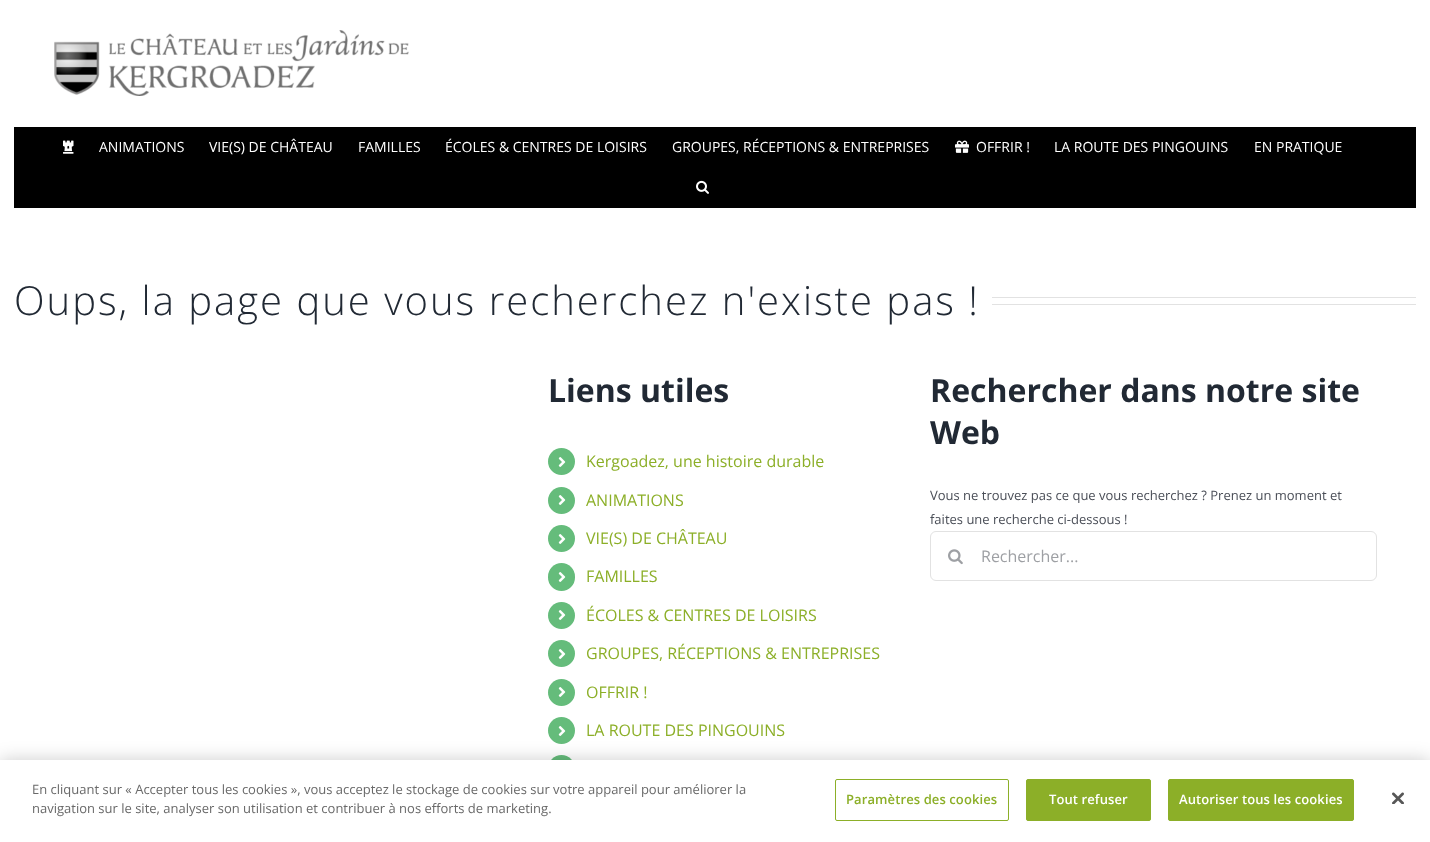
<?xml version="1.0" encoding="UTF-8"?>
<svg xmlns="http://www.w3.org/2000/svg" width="1430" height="842">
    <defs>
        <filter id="blur1" x="-50%" y="-200%" width="200%" height="500%"><feGaussianBlur stdDeviation="9"/></filter>
    </defs>
    <rect width="100%" height="100%" fill="#FFFFFF"/>
    <image x="54" y="30" width="355" height="66" href="img_01.png"/>
    <rect x="14" y="127" width="1402" height="81" fill="#000000"/>
    <image x="63" y="140" width="11" height="14" href="img_02.png"/>
    <text x="99" y="152" font-family="Open Sans" font-size="14" fill="#FFFFFF">ANIMATIONS</text>
    <text x="209" y="152" font-family="Open Sans" font-size="14" fill="#FFFFFF">VIE(S) DE CHÂTEAU</text>
    <text x="358" y="152" font-family="Open Sans" font-size="14" fill="#FFFFFF">FAMILLES</text>
    <text x="445" y="152" font-family="Open Sans" font-size="14" fill="#FFFFFF">ÉCOLES &amp; CENTRES DE LOISIRS</text>
    <text x="672" y="152" font-family="Open Sans" font-size="14" fill="#FFFFFF">GROUPES, RÉCEPTIONS &amp; ENTREPRISES</text>
    <image x="955" y="140" width="14" height="13" href="img_03.png"/>
    <text x="976" y="152" font-family="Open Sans" font-size="14" fill="#FFFFFF">OFFRIR !</text>
    <text x="1054" y="152" font-family="Open Sans" font-size="14" fill="#FFFFFF">LA ROUTE DES PINGOUINS</text>
    <text x="1254" y="152" font-family="Open Sans" font-size="14" fill="#FFFFFF">EN PRATIQUE</text>
    <image x="696" y="180" width="13" height="14" href="img_04.png"/>
    <text x="14" y="315" font-family="Open Sans" font-size="40" font-weight="300" letter-spacing="2" fill="#212934">Oups, la page que vous recherchez n'existe pas !</text>
    <rect x="992" y="297" width="424" height="1" fill="#E2E2E2"/>
    <rect x="992" y="304" width="424" height="1" fill="#E2E2E2"/>
    <text x="548" y="402" font-family="Open Sans" font-size="32" font-weight="700" fill="#212934">Liens utiles</text>
    <circle cx="561.5" cy="461.5" r="13.5" fill="#65BC7B"/>
    <image x="558" y="457" width="8" height="10" href="img_05.png"/>
    <text x="586" y="467" font-family="Open Sans" font-size="16" fill="#8CAF28">Kergoadez, une histoire durable</text>
    <circle cx="561.5" cy="500.5" r="13.5" fill="#65BC7B"/>
    <image x="558" y="495" width="8" height="10" href="img_05.png"/>
    <text x="586" y="506" font-family="Open Sans" font-size="16" fill="#8CAF28">ANIMATIONS</text>
    <circle cx="561.5" cy="538.5" r="13.5" fill="#65BC7B"/>
    <image x="558" y="534" width="8" height="10" href="img_05.png"/>
    <text x="586" y="544" font-family="Open Sans" font-size="16" fill="#8CAF28">VIE(S) DE CHÂTEAU</text>
    <rect x="548" y="563" width="27" height="28" rx="13.5" fill="#65BC7B"/>
    <image x="558" y="572" width="8" height="10" href="img_05.png"/>
    <text x="586" y="582" font-family="Open Sans" font-size="16" fill="#8CAF28">FAMILLES</text>
    <circle cx="561.5" cy="615.5" r="13.5" fill="#65BC7B"/>
    <image x="558" y="610" width="8" height="10" href="img_05.png"/>
    <text x="586" y="621" font-family="Open Sans" font-size="16" fill="#8CAF28">ÉCOLES &amp; CENTRES DE LOISIRS</text>
    <circle cx="561.5" cy="653.5" r="13.5" fill="#65BC7B"/>
    <image x="558" y="649" width="8" height="10" href="img_05.png"/>
    <text x="586" y="659" font-family="Open Sans" font-size="16" fill="#8CAF28">GROUPES, RÉCEPTIONS &amp; ENTREPRISES</text>
    <circle cx="561.5" cy="692.5" r="13.5" fill="#65BC7B"/>
    <image x="558" y="687" width="8" height="10" href="img_05.png"/>
    <text x="586" y="698" font-family="Open Sans" font-size="16" fill="#8CAF28">OFFRIR !</text>
    <circle cx="561.5" cy="730.5" r="13.5" fill="#65BC7B"/>
    <image x="558" y="726" width="8" height="10" href="img_05.png"/>
    <text x="586" y="736" font-family="Open Sans" font-size="16" fill="#8CAF28">LA ROUTE DES PINGOUINS</text>
    <rect x="548" y="755" width="27" height="28" rx="13.5" fill="#65BC7B"/>
    <text font-family="Open Sans" font-size="32" font-weight="700" fill="#212934">
        <tspan x="930" y="402">Rechercher dans notre site</tspan>
        <tspan x="930" y="444">Web</tspan>
    </text>
    <text font-family="Open Sans" font-size="13" fill="#4A4E57">
        <tspan x="930" y="500">Vous ne trouvez pas ce que vous recherchez ? Prenez un moment et</tspan>
        <tspan x="930" y="524">faites une recherche ci-dessous !</tspan>
    </text>
    <rect x="930.5" y="531.5" width="446" height="49" rx="5.5" fill="none" stroke="#E2E2E2"/>
    <image x="948" y="549" width="15" height="16" href="img_06.png"/>
    <text x="981" y="562" font-family="Open Sans" font-size="16" fill="#9EA0A4">Rechercher...</text>
    <rect x="0" y="760" width="1430" height="82" fill="#000000" fill-opacity="0.2" filter="url(#blur1)"/>
    <rect x="0" y="760" width="1430" height="82" fill="#FFFFFF"/>
    <text font-family="Open Sans" font-size="13" fill="#696969">
        <tspan x="32" y="794">En cliquant sur « Accepter tous les cookies », vous acceptez le stockage de cookies sur votre appareil pour améliorer la</tspan>
        <tspan x="32" y="813">navigation sur le site, analyser son utilisation et contribuer à nos efforts de marketing.</tspan>
    </text>
    <rect x="835.5" y="779.5" width="173" height="41" rx="1.5" fill="none" stroke="#8CAF28"/>
    <text x="846" y="804" font-family="Open Sans" font-size="13" font-weight="600" letter-spacing="0.1" fill="#8CAF28">Paramètres des cookies</text>
    <rect x="1026.5" y="779.5" width="124" height="41" rx="1.5" fill="#8CAF28" stroke="#8CAF28"/>
    <text x="1049" y="804" font-family="Open Sans" font-size="13" font-weight="600" letter-spacing="0.1" fill="#FFFFFF">Tout refuser</text>
    <rect x="1168.5" y="779.5" width="185" height="41" rx="1.5" fill="#8CAF28" stroke="#8CAF28"/>
    <text x="1179" y="804" font-family="Open Sans" font-size="13" font-weight="600" letter-spacing="0.1" fill="#FFFFFF">Autoriser tous les cookies</text>
    <image x="1392" y="792" width="12" height="12" href="img_07.png"/>
</svg>
